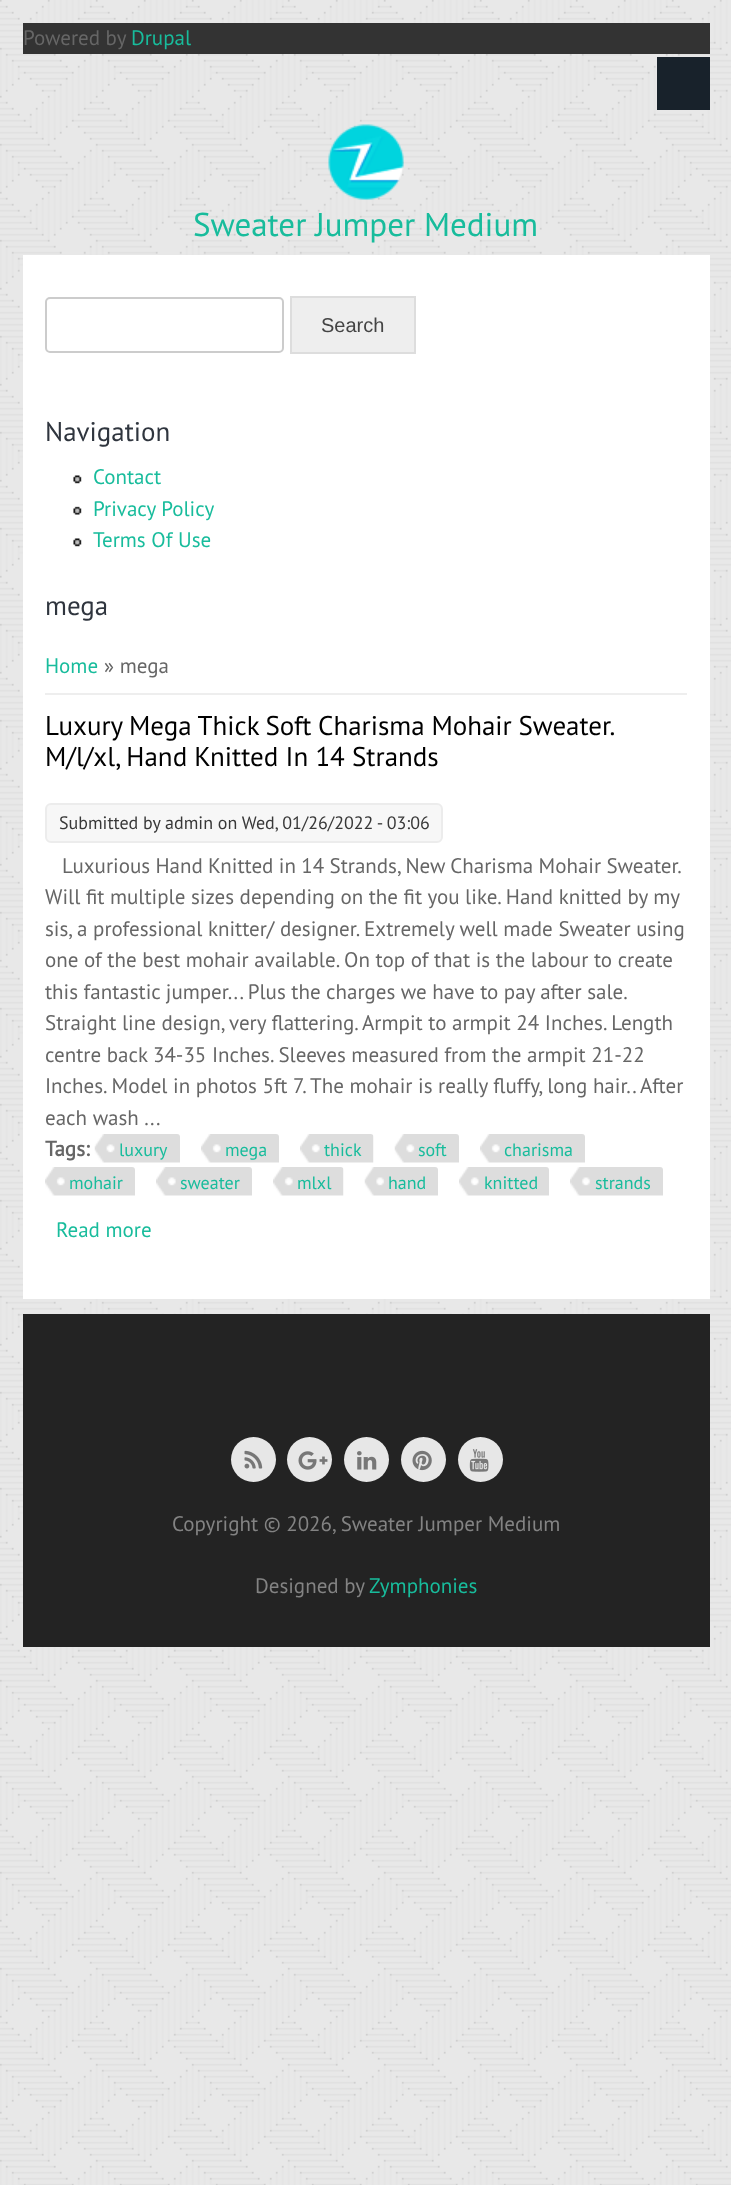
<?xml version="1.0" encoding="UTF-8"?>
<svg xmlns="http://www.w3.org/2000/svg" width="731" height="2185">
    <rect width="100%" height="100%" fill="#FFFFFF"/>
    <image x="0" y="0" width="731" height="2185" href="img_01.png"/>
    <rect x="23" y="23" width="687" height="31" fill="#333333"/>
    <text x="23" y="45" font-family="PT Sans" font-size="21" fill="#666666">Powered by</text>
    <text x="131" y="45" font-family="PT Sans" font-size="21" fill="#18BC9C">Drupal</text>
    <rect x="657" y="57" width="53" height="53" fill="#18222B"/>
    <image x="328" y="124" width="76" height="76" href="img_02.png"/>
    <text x="193" y="236" font-family="PT Sans" font-size="33" fill="#18BC9C">Sweater Jumper Medium</text>
    <rect x="23" y="255" width="687" height="1044" fill="#FFFFFF"/>
    <rect x="46" y="298" width="237" height="54" rx="4" fill="none" stroke="#CCCCCC" stroke-width="2"/>
    <rect x="291" y="297" width="124" height="56" fill="#EEEEEE" stroke="#DDDDDD" stroke-width="2"/>
    <text x="321" y="332" font-family="Liberation Sans" font-size="20" fill="#444444">Search</text>
    <text x="45" y="441" font-family="PT Sans" font-size="27" fill="#2F353E">Navigation</text>
    <image x="73" y="475" width="9" height="9" href="img_03.png"/>
    <text x="93" y="484" font-family="PT Sans" font-size="21" fill="#18BC9C">Contact</text>
    <image x="73" y="506" width="9" height="9" href="img_04.png"/>
    <text x="93" y="516" font-family="PT Sans" font-size="21" fill="#18BC9C">Privacy Policy</text>
    <image x="73" y="538" width="9" height="9" href="img_03.png"/>
    <text x="93" y="547" font-family="PT Sans" font-size="21" fill="#18BC9C">Terms Of Use</text>
    <text x="45" y="615" font-family="PT Sans" font-size="27" fill="#2F353E">mega</text>
    <rect x="45" y="693" width="642" height="2" fill="#EEEEEE"/>
    <text x="45" y="673" font-family="PT Sans" font-size="21" fill="#18BC9C">Home</text>
    <text x="104" y="673" font-family="PT Sans" font-size="21" fill="#666666">» mega</text>
    <text font-family="PT Sans" font-size="27" fill="#000000">
        <tspan x="45" y="735" word-spacing="-0.5">Luxury Mega Thick Soft Charisma Mohair Sweater.</tspan>
        <tspan x="45" y="766">M/l/xl, Hand Knitted In 14 Strands</tspan>
    </text>
    <rect x="46" y="804" width="396" height="38" rx="5" fill="#F7F7F7" stroke="#ECECEC" stroke-width="2"/>
    <text x="59" y="829" font-family="PT Sans" font-size="18" fill="#383838">Submitted by admin on Wed, 01/26/2022 - 03:06</text>
    <text x="62" y="873" word-spacing="-0.25" font-family="PT Sans" font-size="21" fill="#666666">Luxurious Hand Knitted in 14 Strands, New Charisma Mohair Sweater.</text>
    <text font-family="PT Sans" font-size="21" fill="#666666">
        <tspan x="45" y="904">Will fit multiple sizes depending on the fit you like. Hand knitted by my</tspan>
        <tspan x="45" y="936">sis, a professional knitter/ designer. Extremely well made Sweater using</tspan>
        <tspan x="45" y="967">one of the best mohair available. On top of that is the labour to create</tspan>
        <tspan x="45" y="999" word-spacing="-0.1">this fantastic jumper... Plus the charges we have to pay after sale.</tspan>
        <tspan x="45" y="1030">Straight line design, very flattering. Armpit to armpit 24 Inches. Length</tspan>
        <tspan x="45" y="1062">centre back 34-35 Inches. Sleeves measured from the armpit 21-22</tspan>
        <tspan x="45" y="1093">Inches. Model in photos 5ft 7. The mohair is really fluffy, long hair.. After</tspan>
        <tspan x="45" y="1125">each wash ...</tspan>
    </text>
    <text x="45" y="1156" font-family="PT Sans" font-size="21" font-weight="700" fill="#666666">Tags:</text>
    <image x="94" y="1134" width="86" height="29" href="img_05.png"/>
    <text x="119" y="1156" font-family="PT Sans" font-size="18" fill="#18BC9C">luxury</text>
    <image x="201" y="1134" width="78" height="29" href="img_06.png"/>
    <text x="225" y="1156" font-family="PT Sans" font-size="18" fill="#18BC9C">mega</text>
    <image x="300" y="1134" width="74" height="29" href="img_07.png"/>
    <text x="324" y="1156" font-family="PT Sans" font-size="18" fill="#18BC9C">thick</text>
    <image x="394" y="1134" width="65" height="29" href="img_08.png"/>
    <text x="418" y="1156" font-family="PT Sans" font-size="18" fill="#18BC9C">soft</text>
    <image x="480" y="1134" width="105" height="29" href="img_09.png"/>
    <text x="504" y="1156" font-family="PT Sans" font-size="18" fill="#18BC9C">charisma</text>
    <image x="45" y="1167" width="90" height="29" href="img_10.png"/>
    <text x="69" y="1189" font-family="PT Sans" font-size="18" fill="#18BC9C">mohair</text>
    <image x="156" y="1167" width="96" height="29" href="img_11.png"/>
    <text x="180" y="1189" font-family="PT Sans" font-size="18" fill="#18BC9C">sweater</text>
    <image x="273" y="1167" width="71" height="29" href="img_12.png"/>
    <text x="297" y="1189" font-family="PT Sans" font-size="18" fill="#18BC9C">mlxl</text>
    <image x="364" y="1167" width="74" height="29" href="img_13.png"/>
    <text x="388" y="1189" font-family="PT Sans" font-size="18" fill="#18BC9C">hand</text>
    <image x="459" y="1167" width="90" height="29" href="img_10.png"/>
    <text x="484" y="1189" font-family="PT Sans" font-size="18" fill="#18BC9C">knitted</text>
    <image x="570" y="1167" width="93" height="29" href="img_14.png"/>
    <text x="595" y="1189" font-family="PT Sans" font-size="18" fill="#18BC9C">strands</text>
    <text x="56" y="1237" font-family="PT Sans" font-size="21" fill="#18BC9C">Read more</text>
    <rect x="23" y="1314" width="687" height="333" fill="#232323"/>
    <circle cx="253.5" cy="1459.5" r="22.5" fill="#E7E7E7"/>
    <image x="244" y="1450" width="19" height="19" href="img_15.png"/>
    <circle cx="309.5" cy="1459.5" r="22.5" fill="#E7E7E7"/>
    <image x="298" y="1451" width="30" height="19" href="img_16.png"/>
    <circle cx="366.5" cy="1459.5" r="22.5" fill="#E7E7E7"/>
    <image x="357" y="1451" width="20" height="19" href="img_17.png"/>
    <circle cx="423.5" cy="1459.5" r="22.5" fill="#E7E7E7"/>
    <image x="412" y="1450" width="20" height="21" href="img_18.png"/>
    <circle cx="480.5" cy="1459.5" r="22.5" fill="#E7E7E7"/>
    <image x="469" y="1449" width="20" height="23" href="img_19.png"/>
    <text x="172" y="1531" font-family="PT Sans" font-size="21" fill="#838383">Copyright © 2026, Sweater Jumper Medium</text>
    <text x="255" y="1593" font-family="PT Sans" font-size="21" fill="#838383">Designed by</text>
    <text x="369" y="1593" font-family="PT Sans" font-size="21" fill="#18BC9C">Zymphonies</text>
</svg>
